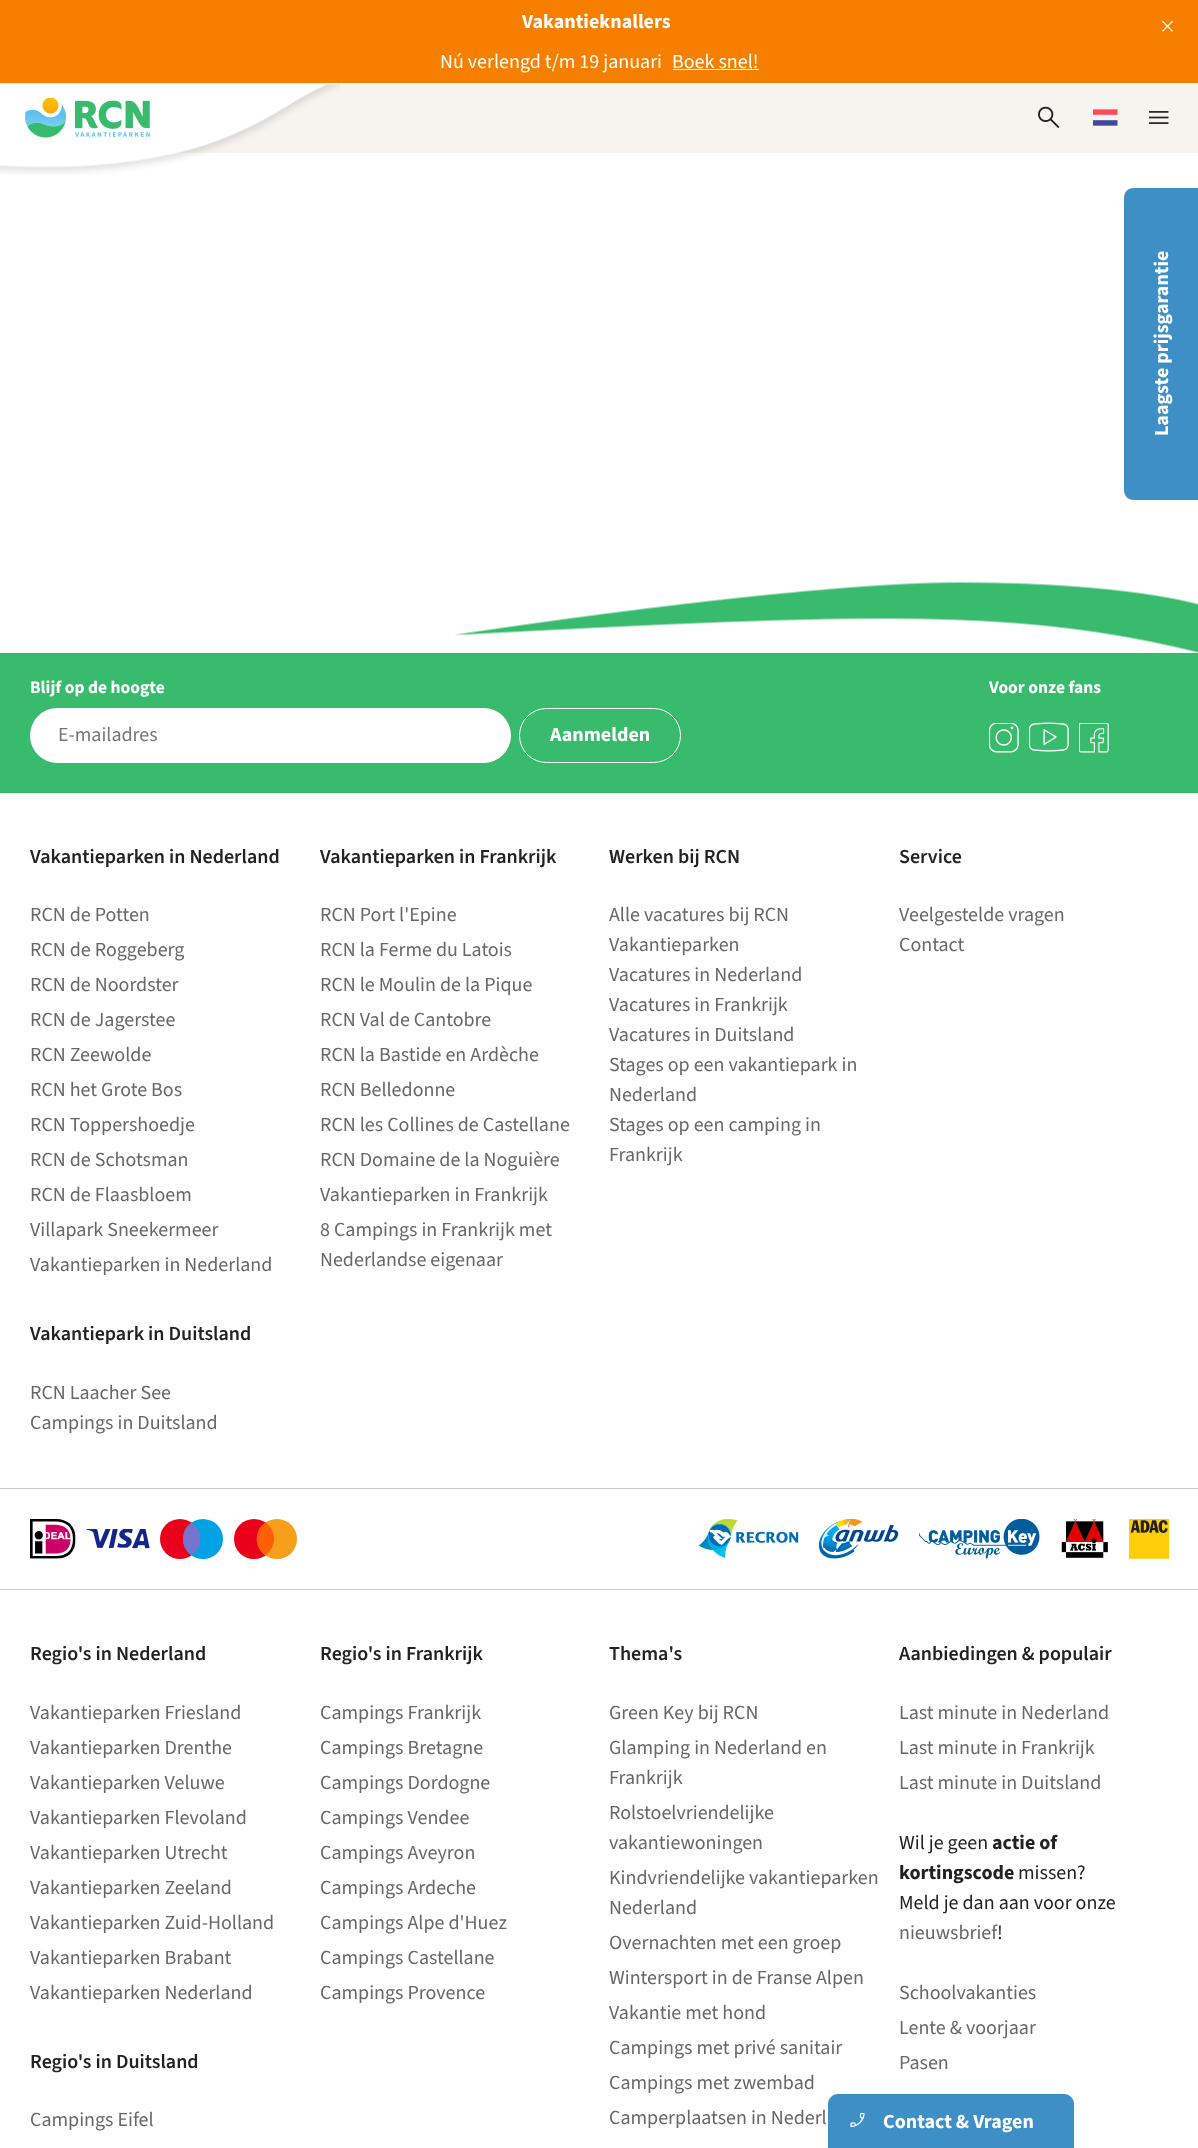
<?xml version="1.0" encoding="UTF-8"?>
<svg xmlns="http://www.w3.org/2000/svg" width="1198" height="2148">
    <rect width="100%" height="100%" fill="#FFFFFF"/>
    <rect x="0" y="0" width="1198" height="83" fill="#F67F00"/>
    <text x="522" y="28" font-family="'Source Sans 3'" font-size="20" font-weight="700" fill="#FFFFFF">Vakantieknallers</text>
    <image x="1162" y="20" width="11" height="12" href="img_01.png"/>
    <text x="440" y="68" font-family="'Source Sans 3'" font-size="20" fill="#FFFFFF">Nú verlengd t/m 19 januari</text>
    <text x="672" y="68" font-family="'Source Sans 3'" font-size="20" fill="#FFFFFF">Boek snel!</text>
    <rect x="673" y="69" width="86" height="1" fill="#FFFFFF"/>
    <rect x="0" y="83" width="1198" height="70" fill="#F6F4EE"/>
    <image x="0" y="84" width="340" height="91" href="img_02.png"/>
    <image x="25" y="98" width="125" height="40" href="img_03.png"/>
    <image x="1038" y="106" width="22" height="23" href="img_04.png"/>
    <image x="1093" y="109" width="25" height="17" href="img_05.png"/>
    <image x="1149" y="111" width="20" height="13" href="img_06.png"/>
    <path d="M 1124 490 C 1124 496 1128 500 1134 500 H 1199 V 188 H 1134 C 1128 188 1124 192 1124 198 Z" fill="#3F8FC7"/>
    <text x="1168" y="436" transform="rotate(-90 1168 436)" font-family="'Source Sans 3'" font-size="20" font-weight="700" fill="#FFFFFF">Laagste prijsgarantie</text>
    <image x="454" y="582" width="744" height="71" href="img_07.png"/>
    <rect x="0" y="653" width="1198" height="140" fill="#39BB6E"/>
    <text x="30" y="693" font-family="'Source Sans 3'" font-size="17.5" font-weight="700" fill="#FFFFFF">Blijf op de hoogte</text>
    <rect x="30" y="708" width="481" height="55" rx="27.5" fill="#FFFFFF"/>
    <text x="58" y="741" font-family="'Source Sans 3'" font-size="20" fill="#767676">E-mailadres</text>
    <rect x="519.5" y="708.5" width="161" height="54" rx="27" fill="none" stroke="#FFFFFF"/>
    <text x="550" y="741" font-family="'Source Sans 3'" font-size="20" font-weight="700" fill="#FFFFFF">Aanmelden</text>
    <text x="989" y="693" font-family="'Source Sans 3'" font-size="17.5" font-weight="700" fill="#FFFFFF">Voor onze fans</text>
    <image x="989" y="723" width="30" height="30" href="img_08.png"/>
    <image x="1029" y="722" width="40" height="30" href="img_09.png"/>
    <image x="1079" y="723" width="30" height="30" href="img_10.png"/>
    <text x="30" y="863" font-family="'Source Sans 3'" font-size="20" font-weight="600" fill="#222222">Vakantieparken in Nederland</text>
    <text font-family="'Source Sans 3'" font-size="20" fill="#676767">
        <tspan x="30" y="921">RCN de Potten</tspan>
        <tspan x="30" y="956">RCN de Roggeberg</tspan>
        <tspan x="30" y="991">RCN de Noordster</tspan>
        <tspan x="30" y="1026">RCN de Jagerstee</tspan>
        <tspan x="30" y="1061">RCN Zeewolde</tspan>
        <tspan x="30" y="1096">RCN het Grote Bos</tspan>
        <tspan x="30" y="1131">RCN Toppershoedje</tspan>
        <tspan x="30" y="1166">RCN de Schotsman</tspan>
        <tspan x="30" y="1201">RCN de Flaasbloem</tspan>
        <tspan x="30" y="1236">Villapark Sneekermeer</tspan>
        <tspan x="30" y="1271">Vakantieparken in Nederland</tspan>
    </text>
    <text x="30" y="1340" font-family="'Source Sans 3'" font-size="20" font-weight="600" fill="#222222">Vakantiepark in Duitsland</text>
    <text font-family="'Source Sans 3'" font-size="20" fill="#676767">
        <tspan x="30" y="1399">RCN Laacher See</tspan>
        <tspan x="30" y="1429">Campings in Duitsland</tspan>
    </text>
    <text x="320" y="863" font-family="'Source Sans 3'" font-size="20" font-weight="600" fill="#222222">Vakantieparken in Frankrijk</text>
    <text font-family="'Source Sans 3'" font-size="20" fill="#676767">
        <tspan x="320" y="921">RCN Port l'Epine</tspan>
        <tspan x="320" y="956">RCN la Ferme du Latois</tspan>
        <tspan x="320" y="991">RCN le Moulin de la Pique</tspan>
        <tspan x="320" y="1026">RCN Val de Cantobre</tspan>
        <tspan x="320" y="1061">RCN la Bastide en Ardèche</tspan>
        <tspan x="320" y="1096">RCN Belledonne</tspan>
        <tspan x="320" y="1131">RCN les Collines de Castellane</tspan>
        <tspan x="320" y="1166">RCN Domaine de la Noguière</tspan>
        <tspan x="320" y="1201">Vakantieparken in Frankrijk</tspan>
        <tspan x="320" y="1236">8 Campings in Frankrijk met</tspan>
        <tspan x="320" y="1266">Nederlandse eigenaar</tspan>
    </text>
    <text x="609" y="863" font-family="'Source Sans 3'" font-size="20" font-weight="600" fill="#222222">Werken bij RCN</text>
    <text font-family="'Source Sans 3'" font-size="20" fill="#676767">
        <tspan x="609" y="921">Alle vacatures bij RCN</tspan>
        <tspan x="609" y="951">Vakantieparken</tspan>
        <tspan x="609" y="981">Vacatures in Nederland</tspan>
        <tspan x="609" y="1011">Vacatures in Frankrijk</tspan>
        <tspan x="609" y="1041">Vacatures in Duitsland</tspan>
        <tspan x="609" y="1071">Stages op een vakantiepark in</tspan>
        <tspan x="609" y="1101">Nederland</tspan>
        <tspan x="609" y="1131">Stages op een camping in</tspan>
        <tspan x="609" y="1161">Frankrijk</tspan>
    </text>
    <text x="899" y="863" font-family="'Source Sans 3'" font-size="20" font-weight="600" fill="#222222">Service</text>
    <text font-family="'Source Sans 3'" font-size="20" fill="#676767">
        <tspan x="899" y="921">Veelgestelde vragen</tspan>
        <tspan x="899" y="951">Contact</tspan>
    </text>
    <rect x="0" y="1488" width="1198" height="1" fill="#CCCCCC"/>
    <rect x="0" y="1589" width="1198" height="1" fill="#CCCCCC"/>
    <image x="30" y="1519" width="46" height="40" href="img_11.png"/>
    <image x="86" y="1529" width="64" height="20" href="img_12.png"/>
    <circle cx="180" cy="1539" r="20" fill="#EB001B"/>
    <circle cx="203" cy="1539" r="20" fill="#00A2E5"/>
    <path d="M 200.5 1539 C 200.5 1532 197 1526 191.5 1522.5 C 180.5 1530.5 180 1547.5 191.5 1555 C 197 1551.5 200.5 1545.5 200.5 1539 Z" fill="#7375CF"/>
    <circle cx="254" cy="1539" r="20" fill="#EB001B"/>
    <circle cx="277" cy="1539" r="20" fill="#F79E1B"/>
    <path d="M 274 1539 C 274 1532 270.5 1526 265.5 1522.5 C 254 1530.5 253.5 1547.5 265.5 1555 C 270.5 1551.5 274 1545.5 274 1539 Z" fill="#FF5F00"/>
    <image x="699" y="1519" width="100" height="39" href="img_13.png"/>
    <image x="819" y="1518" width="80" height="41" href="img_14.png"/>
    <image x="919" y="1519" width="121" height="40" href="img_15.png"/>
    <image x="1061" y="1519" width="47" height="39" href="img_16.png"/>
    <image x="1129" y="1519" width="40" height="40" href="img_17.png"/>
    <text x="30" y="1660" font-family="'Source Sans 3'" font-size="20" font-weight="600" fill="#222222">Regio's in Nederland</text>
    <text font-family="'Source Sans 3'" font-size="20" fill="#676767">
        <tspan x="30" y="1719">Vakantieparken Friesland</tspan>
        <tspan x="30" y="1754">Vakantieparken Drenthe</tspan>
        <tspan x="30" y="1789">Vakantieparken Veluwe</tspan>
        <tspan x="30" y="1824">Vakantieparken Flevoland</tspan>
        <tspan x="30" y="1859">Vakantieparken Utrecht</tspan>
        <tspan x="30" y="1894">Vakantieparken Zeeland</tspan>
        <tspan x="30" y="1929">Vakantieparken Zuid-Holland</tspan>
        <tspan x="30" y="1964">Vakantieparken Brabant</tspan>
        <tspan x="30" y="1999">Vakantieparken Nederland</tspan>
    </text>
    <text x="30" y="2068" font-family="'Source Sans 3'" font-size="20" font-weight="600" fill="#222222">Regio's in Duitsland</text>
    <text x="30" y="2126" font-family="'Source Sans 3'" font-size="20" fill="#676767">Campings Eifel</text>
    <text x="320" y="1660" font-family="'Source Sans 3'" font-size="20" font-weight="600" fill="#222222">Regio's in Frankrijk</text>
    <text font-family="'Source Sans 3'" font-size="20" fill="#676767">
        <tspan x="320" y="1719">Campings Frankrijk</tspan>
        <tspan x="320" y="1754">Campings Bretagne</tspan>
        <tspan x="320" y="1789">Campings Dordogne</tspan>
        <tspan x="320" y="1824">Campings Vendee</tspan>
        <tspan x="320" y="1859">Campings Aveyron</tspan>
        <tspan x="320" y="1894">Campings Ardeche</tspan>
        <tspan x="320" y="1929">Campings Alpe d'Huez</tspan>
        <tspan x="320" y="1964">Campings Castellane</tspan>
        <tspan x="320" y="1999">Campings Provence</tspan>
    </text>
    <text x="609" y="1660" font-family="'Source Sans 3'" font-size="20" font-weight="600" fill="#222222">Thema's</text>
    <text font-family="'Source Sans 3'" font-size="20" fill="#676767">
        <tspan x="609" y="1719">Green Key bij RCN</tspan>
        <tspan x="609" y="1754">Glamping in Nederland en</tspan>
        <tspan x="609" y="1784">Frankrijk</tspan>
        <tspan x="609" y="1819">Rolstoelvriendelijke</tspan>
        <tspan x="609" y="1849">vakantiewoningen</tspan>
        <tspan x="609" y="1884">Kindvriendelijke vakantieparken</tspan>
        <tspan x="609" y="1914">Nederland</tspan>
        <tspan x="609" y="1949">Overnachten met een groep</tspan>
        <tspan x="609" y="1984">Wintersport in de Franse Alpen</tspan>
        <tspan x="609" y="2019">Vakantie met hond</tspan>
        <tspan x="609" y="2054">Campings met privé sanitair</tspan>
        <tspan x="609" y="2089">Campings met zwembad</tspan>
        <tspan x="609" y="2124">Camperplaatsen in Nederl</tspan>
    </text>
    <text x="899" y="1660" font-family="'Source Sans 3'" font-size="20" font-weight="600" fill="#222222">Aanbiedingen &amp; populair</text>
    <text font-family="'Source Sans 3'" font-size="20" fill="#676767">
        <tspan x="899" y="1719">Last minute in Nederland</tspan>
        <tspan x="899" y="1754">Last minute in Frankrijk</tspan>
        <tspan x="899" y="1789">Last minute in Duitsland</tspan>
    </text>
    <text x="899" y="1849" font-family="'Source Sans 3'" font-size="20" fill="#222222">Wil je geen</text>
    <text x="992" y="1849" font-family="'Source Sans 3'" font-size="20" font-weight="700" fill="#222222">actie of</text>
    <text x="899" y="1879" font-family="'Source Sans 3'" font-size="20" font-weight="700" fill="#222222">kortingscode</text>
    <text x="1018" y="1879" font-family="'Source Sans 3'" font-size="20" fill="#222222">missen?</text>
    <text x="899" y="1909" font-family="'Source Sans 3'" font-size="20" fill="#222222">Meld je dan aan voor onze</text>
    <text x="899" y="1939" font-family="'Source Sans 3'" font-size="20" fill="#676767">nieuwsbrief</text>
    <text x="997" y="1939" font-family="'Source Sans 3'" font-size="20" fill="#222222">!</text>
    <text font-family="'Source Sans 3'" font-size="20" fill="#676767">
        <tspan x="899" y="1999">Schoolvakanties</tspan>
        <tspan x="899" y="2034">Lente &amp; voorjaar</tspan>
        <tspan x="899" y="2069">Pasen</tspan>
    </text>
    <path d="M 838 2094 H 1064 C 1069.5 2094 1074 2098.5 1074 2104 V 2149 H 828 V 2104 C 828 2098.5 832.5 2094 838 2094 Z" fill="#3F8FC7"/>
    <image x="850" y="2112" width="15" height="16" href="img_18.png"/>
    <text x="883" y="2128" font-family="'Source Sans 3'" font-size="20" font-weight="700" fill="#FFFFFF">Contact &amp; Vragen</text>
</svg>
